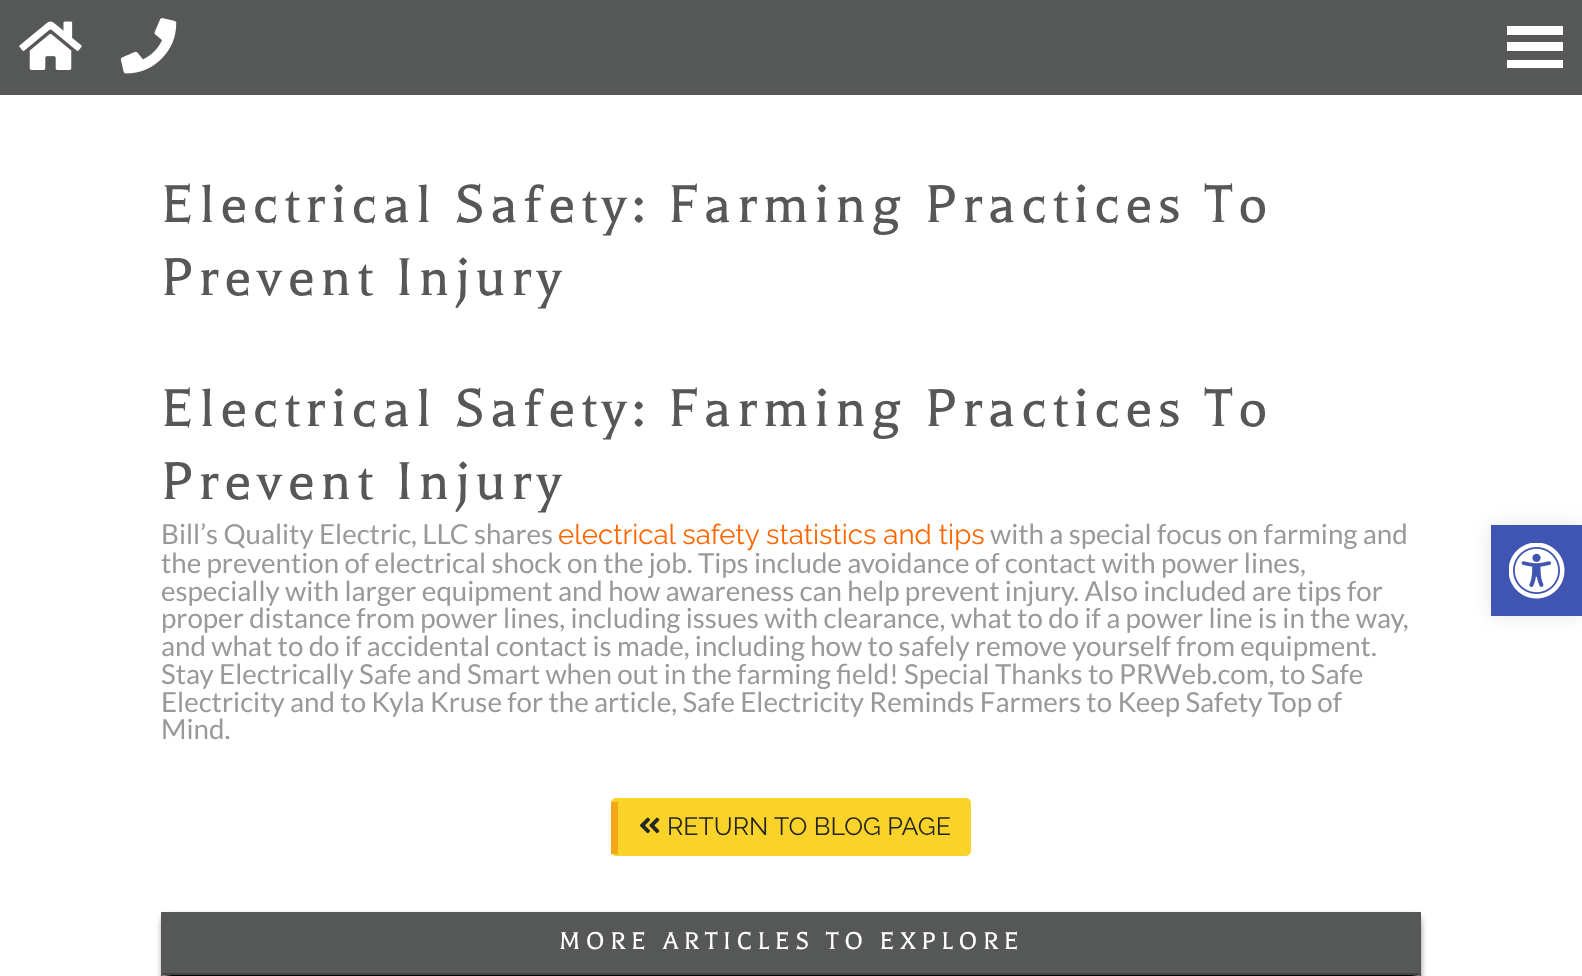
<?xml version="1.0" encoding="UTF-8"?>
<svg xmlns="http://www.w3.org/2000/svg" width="1582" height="976">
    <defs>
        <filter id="blur1" x="-50%" y="-200%" width="200%" height="500%"><feGaussianBlur stdDeviation="4.5"/></filter>
        <filter id="blur2" x="-50%" y="-200%" width="200%" height="500%"><feGaussianBlur stdDeviation="9"/></filter>
    </defs>
    <rect width="100%" height="100%" fill="#FFFFFF"/>
    <rect x="0" y="0" width="1582" height="95" fill="#565757"/>
    <image x="19" y="21" width="63" height="49" href="img_01.png"/>
    <image x="120" y="18" width="57" height="56" href="img_02.png"/>
    <rect x="1507" y="26" width="56" height="42" fill="#FFFFFF"/>
    <rect x="1507" y="35" width="56" height="7" fill="#565757"/>
    <rect x="1507" y="51" width="56" height="9" fill="#565757"/>
    <text font-family="Balthazar" font-size="60.9" letter-spacing="5.55" fill="#565757">
        <tspan x="161" y="222">Electrical Safety: Farming Practices To</tspan>
        <tspan x="161" y="295">Prevent Injury</tspan>
    </text>
    <text font-family="Balthazar" font-size="60.9" letter-spacing="5.55" fill="#565757">
        <tspan x="161" y="426">Electrical Safety: Farming Practices To</tspan>
        <tspan x="161" y="499">Prevent Injury</tspan>
    </text>
    <text x="161" y="544" font-family="Lato" font-size="27.7" fill="#999999">Bill’s Quality Electric, LLC shares</text>
    <text x="558" y="544" font-family="Raleway" font-size="27.7" fill="#FF6600">electrical safety statistics and tips</text>
    <text x="990" y="544" font-family="Lato" font-size="27.7" fill="#999999">with a special focus on farming and</text>
    <text font-family="Lato" font-size="27.7" fill="#999999">
        <tspan x="161" y="573">the prevention of electrical shock on the job. Tips include avoidance of contact with power lines,</tspan>
        <tspan x="161" y="601">especially with larger equipment and how awareness can help prevent injury. Also included are tips for</tspan>
        <tspan x="161" y="628">proper distance from power lines, including issues with clearance, what to do if a power line is in the way,</tspan>
        <tspan x="161" y="656">and what to do if accidental contact is made, including how to safely remove yourself from equipment.</tspan>
        <tspan x="161" y="684">Stay Electrically Safe and Smart when out in the farming field!</tspan>
    </text>
    <text x="904" y="684" font-family="Lato" font-size="27.7" fill="#999999">Special Thanks to PRWeb.com, to Safe</text>
    <text font-family="Lato" font-size="27.7" fill="#999999">
        <tspan x="161" y="712">Electricity and to Kyla Kruse for the article, Safe Electricity Reminds Farmers to Keep Safety Top of</tspan>
        <tspan x="161" y="739">Mind.</tspan>
    </text>
    <rect x="611" y="798" width="360" height="58" rx="5" fill="#F9D22A"/>
    <rect x="611" y="802" width="7" height="52" fill="#F3A617"/>
    <image x="640" y="817" width="20" height="17" href="img_03.png"/>
    <text x="667" y="835" font-family="Raleway" font-size="25" fill="#252525">RETURN TO BLOG PAGE</text>
    <rect x="165" y="919" width="1253" height="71" fill="#000000" filter="url(#blur1)"/>
    <rect x="162" y="913" width="1258" height="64" fill="none" stroke="#565757" stroke-width="2"/>
    <rect x="163" y="914" width="1256" height="59" fill="#565757"/>
    <rect x="163" y="973" width="1256" height="2" fill="#444444"/>
    <text x="559" y="949" font-family="Balthazar" font-size="27.7" letter-spacing="5.55" fill="#FFFFFF">MORE ARTICLES TO EXPLORE</text>
    <rect x="1491" y="525" width="91" height="91" fill="#000000" fill-opacity="0.1" filter="url(#blur2)"/>
    <rect x="1491" y="525" width="91" height="91" fill="#4054B2"/>
    <image x="1509" y="543" width="56" height="56" href="img_04.png"/>
</svg>
